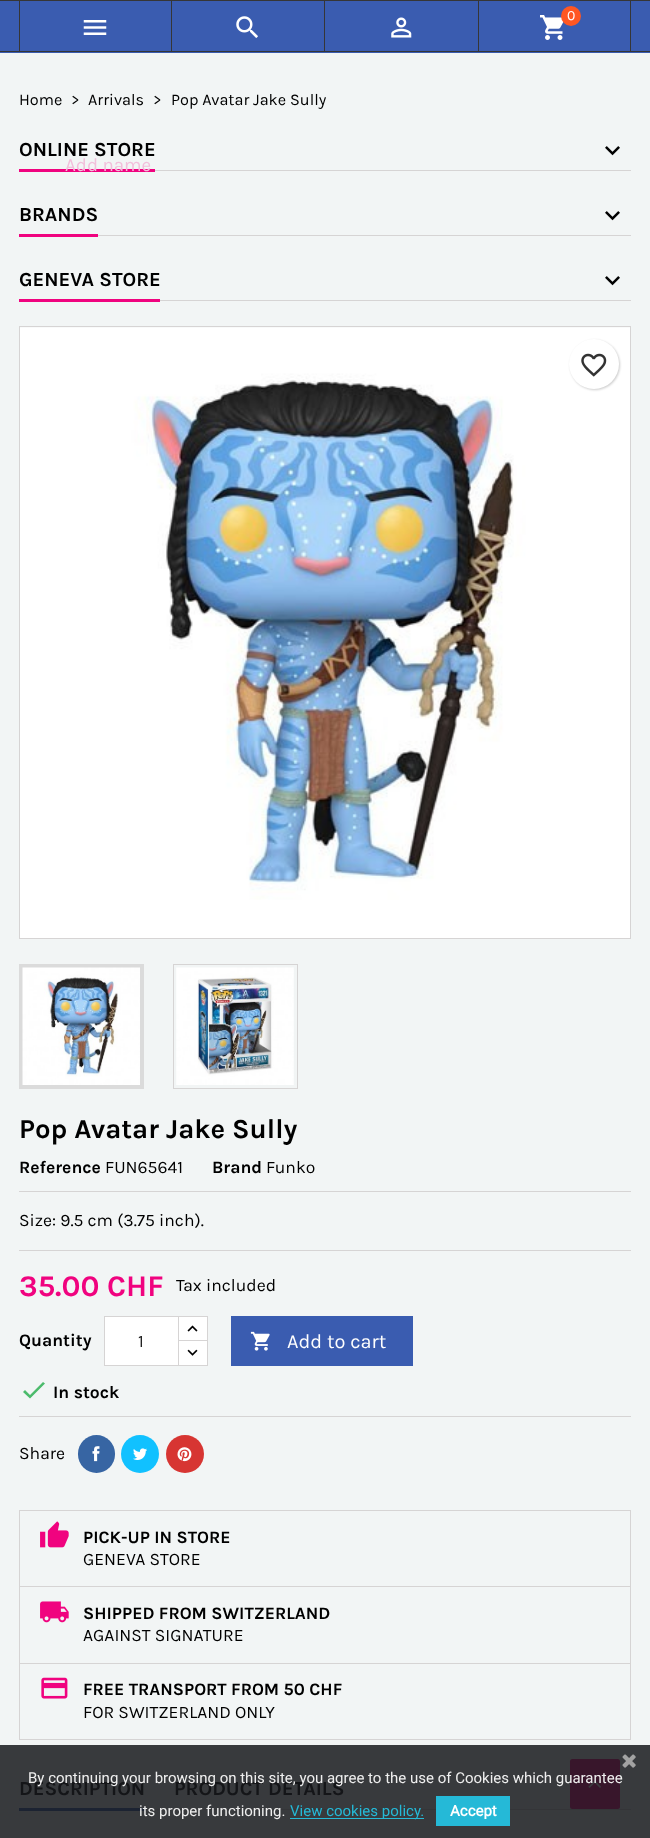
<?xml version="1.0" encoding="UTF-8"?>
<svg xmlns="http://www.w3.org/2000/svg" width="650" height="1838">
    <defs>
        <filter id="blur1" x="-50%" y="-200%" width="200%" height="500%"><feGaussianBlur stdDeviation="1"/></filter>
    </defs>
    <rect width="100%" height="100%" fill="#F2F5F5"/>
    <rect x="0" y="1745" width="650" height="93" fill="#383A3D"/>
    <rect x="0" y="1" width="650" height="52" fill="#3A5CB0"/>
    <rect x="0" y="0" width="650" height="1" fill="#363636"/>
    <rect x="0" y="51" width="650" height="1" fill="#363636"/>
    <rect x="171" y="1" width="1" height="50" fill="#363636"/>
    <rect x="19" y="1" width="1" height="50" fill="#363636"/>
    <image x="83" y="20" width="24" height="15" href="img_01.png"/>
    <rect x="324" y="1" width="1" height="50" fill="#363636"/>
    <image x="236" y="16" width="22" height="22" href="img_02.png"/>
    <rect x="478" y="1" width="1" height="50" fill="#363636"/>
    <image x="391" y="17" width="21" height="21" href="img_03.png"/>
    <rect x="630" y="1" width="1" height="50" fill="#363636"/>
    <image x="540" y="15" width="24" height="25" href="img_04.png"/>
    <circle cx="571" cy="16" r="10" fill="#FF5722"/>
    <text x="567" y="20" font-family="Karla" font-size="14" fill="#FFFFFF">0</text>
    <text x="19" y="105" font-family="Karla" font-size="16.25" fill="#000000">Home</text>
    <text x="71" y="105" font-family="Karla" font-size="16.25" fill="#000000">&gt;</text>
    <text x="88" y="105" font-family="Karla" font-size="16.25" fill="#000000">Arrivals</text>
    <text x="153" y="105" font-family="Karla" font-size="16.25" fill="#000000">&gt;</text>
    <text x="171" y="105" font-family="Karla" font-size="16.25" fill="#000000">Pop Avatar Jake Sully</text>
    <rect x="155" y="170" width="476" height="1" fill="#D6D4D4"/>
    <rect x="19" y="169" width="136" height="3" fill="#F0037F"/>
    <text x="19" y="156" font-family="Karla" font-size="20" font-weight="700" fill="#000000">ONLINE STORE</text>
    <image x="605" y="146" width="15" height="10" href="img_05.png"/>
    <rect x="98" y="235" width="533" height="1" fill="#D6D4D4"/>
    <rect x="19" y="234" width="79" height="3" fill="#F0037F"/>
    <text x="19" y="221" font-family="Karla" font-size="20" font-weight="700" fill="#000000">BRANDS</text>
    <image x="605" y="211" width="15" height="10" href="img_05.png"/>
    <rect x="160" y="300" width="471" height="1" fill="#D6D4D4"/>
    <rect x="19" y="299" width="141" height="3" fill="#F0037F"/>
    <text x="19" y="286" font-family="Karla" font-size="20" font-weight="700" fill="#000000">GENEVA STORE</text>
    <image x="605" y="276" width="15" height="10" href="img_05.png"/>
    <rect x="19.5" y="326.5" width="611" height="612" fill="none" stroke="#D6D4D4"/>
    <image x="20" y="327" width="610" height="573" href="img_06.png"/>
    <rect x="20" y="900" width="610" height="38" fill="#FFFFFF"/>
    <rect x="21" y="966" width="121" height="121" fill="none" stroke="#DBDBDB" stroke-width="4"/>
    <rect x="173.5" y="964.5" width="124" height="124" fill="none" stroke="#D6D4D4"/>
    <image x="22" y="967" width="118" height="118" href="img_07.png"/>
    <image x="176" y="967" width="118" height="118" href="img_08.png"/>
    <rect x="570" y="340" width="50" height="50" rx="25" fill="#000000" fill-opacity="0.2" filter="url(#blur1)"/>
    <circle cx="594" cy="364" r="25" fill="#FFFFFF"/>
    <image x="581" y="353" width="26" height="24" href="img_09.png"/>
    <text x="19" y="1138" font-family="Karla" font-size="27.5" font-weight="700" fill="#000000">Pop Avatar Jake Sully</text>
    <text x="19" y="1173" font-family="Karla" font-size="17.5" font-weight="700" fill="#000000">Reference</text>
    <text x="105" y="1173" font-family="Karla" font-size="17.5" fill="#000000">FUN65641</text>
    <text x="212" y="1173" font-family="Karla" font-size="17.5" font-weight="700" fill="#000000">Brand</text>
    <text x="266" y="1173" font-family="Karla" font-size="17.5" fill="#000000">Funko</text>
    <rect x="19" y="1191" width="612" height="1" fill="#D6D4D4"/>
    <text x="19" y="1226" font-family="Karla" font-size="17.5" fill="#000000">Size: 9.5 cm (3.75 inch).</text>
    <rect x="19" y="1250" width="612" height="1" fill="#D6D4D4"/>
    <text x="19" y="1296" font-family="Karla" font-size="30" font-weight="700" fill="#F0037F">35.00 CHF</text>
    <text x="176" y="1291" font-family="Karla" font-size="17.5" fill="#000000">Tax included</text>
    <text x="19" y="1346" font-family="Karla" font-size="17.5" font-weight="700" fill="#000000">Quantity</text>
    <rect x="179" y="1317" width="28" height="23" fill="#FFFFFF"/>
    <rect x="178.5" y="1316.5" width="29" height="26" fill="none" stroke="#D6D4D4"/>
    <rect x="178.5" y="1340.5" width="29" height="25" fill="#FFFFFF" stroke="#D6D4D4"/>
    <rect x="104.5" y="1316.5" width="74" height="49" fill="#FFFFFF" stroke="#D6D4D4"/>
    <text x="138" y="1347" font-family="Karla" font-size="17.5" fill="#232323">1</text>
    <image x="187" y="1325" width="11" height="7" href="img_10.png"/>
    <image x="187" y="1349" width="11" height="7" href="img_11.png"/>
    <rect x="231" y="1316" width="182" height="50" fill="#3A5CB0"/>
    <image x="250" y="1331" width="20" height="20" href="img_12.png"/>
    <text x="287" y="1348" font-family="Karla" font-size="20" fill="#FFFFFF">Add to cart</text>
    <path d="M 30 1395 L 43 1382 L 45 1383.5 L 30 1398.5 L 23 1392 L 25 1390 Z" fill="#4CBB6C"/>
    <text x="53" y="1398" font-family="Karla" font-size="17.5" font-weight="700" fill="#000000">In stock</text>
    <rect x="19" y="1416" width="612" height="1" fill="#D6D4D4"/>
    <text x="19" y="1459" font-family="Karla" font-size="17.5" fill="#000000">Share</text>
    <rect x="78" y="1435" width="37" height="38" rx="18.5" fill="#3765A3"/>
    <image x="92" y="1446" width="8" height="16" href="img_13.png"/>
    <circle cx="140" cy="1454" r="19" fill="#11C1FF"/>
    <image x="133" y="1448" width="14" height="12" href="img_14.png"/>
    <circle cx="185" cy="1454" r="19" fill="#D73532"/>
    <image x="177" y="1447" width="15" height="15" href="img_15.png"/>
    <rect x="19.5" y="1510.5" width="611" height="229" fill="none" stroke="#D6D4D4"/>
    <rect x="20" y="1586" width="610" height="1" fill="#D6D4D4"/>
    <image x="40" y="1521" width="29" height="27" href="img_16.png"/>
    <text x="83" y="1543" font-family="Karla" font-size="17.5" font-weight="700" fill="#000000">PICK-UP IN STORE</text>
    <text x="83" y="1565" font-family="Karla" font-size="17.5" fill="#000000">GENEVA STORE</text>
    <rect x="20" y="1663" width="610" height="1" fill="#D6D4D4"/>
    <image x="40" y="1601" width="29" height="22" href="img_17.png"/>
    <text x="83" y="1619" font-family="Karla" font-size="17.5" font-weight="700" fill="#000000">SHIPPED FROM SWITZERLAND</text>
    <text x="83" y="1641" font-family="Karla" font-size="17.5" fill="#000000">AGAINST SIGNATURE</text>
    <image x="41" y="1677" width="27" height="22" href="img_18.png"/>
    <text x="83" y="1695" font-family="Karla" font-size="17.5" font-weight="700" fill="#000000">FREE TRANSPORT FROM 50 CHF</text>
    <text x="83" y="1718" font-family="Karla" font-size="17.5" fill="#000000">FOR SWITZERLAND ONLY</text>
    <rect x="145" y="1809" width="486" height="1" fill="#343538"/>
    <rect x="19" y="1808" width="126" height="3" fill="#1C2332"/>
    <text x="19" y="1795" font-family="Karla" font-size="20" font-weight="700" fill="#141518">DESCRIPTION</text>
    <text x="174" y="1795" font-family="Karla" font-size="20" font-weight="700" fill="#141518">PRODUCT DETAILS</text>
    <text x="65" y="171" font-family="Karla" font-size="18.75" fill="#F2BFDB">Add name</text>
    <rect x="570" y="1759" width="50" height="50" rx="2.5" fill="#38162B"/>
    <image x="588" y="1780" width="13" height="8" href="img_19.png"/>
    <image x="622" y="1754" width="14" height="14" href="img_20.png"/>
    <text x="28" y="1783" font-family="Roboto" font-size="15" fill="#EFEFEF">By continuing your browsing on this site, you agree to the use of Cookies which guarantee</text>
    <text x="139" y="1816" font-family="Roboto" font-size="15" fill="#EFEFEF">its proper functioning.</text>
    <rect x="290" y="1818" width="134" height="1" fill="#25B9D7"/>
    <text x="290" y="1816" font-family="Roboto" font-size="15" fill="#25B9D7">View cookies policy.</text>
    <rect x="436" y="1796" width="74" height="30" fill="#25B9D7"/>
    <text x="450" y="1816" font-family="Roboto" font-size="15" font-weight="700" fill="#FFFFFF">Accept</text>
</svg>
